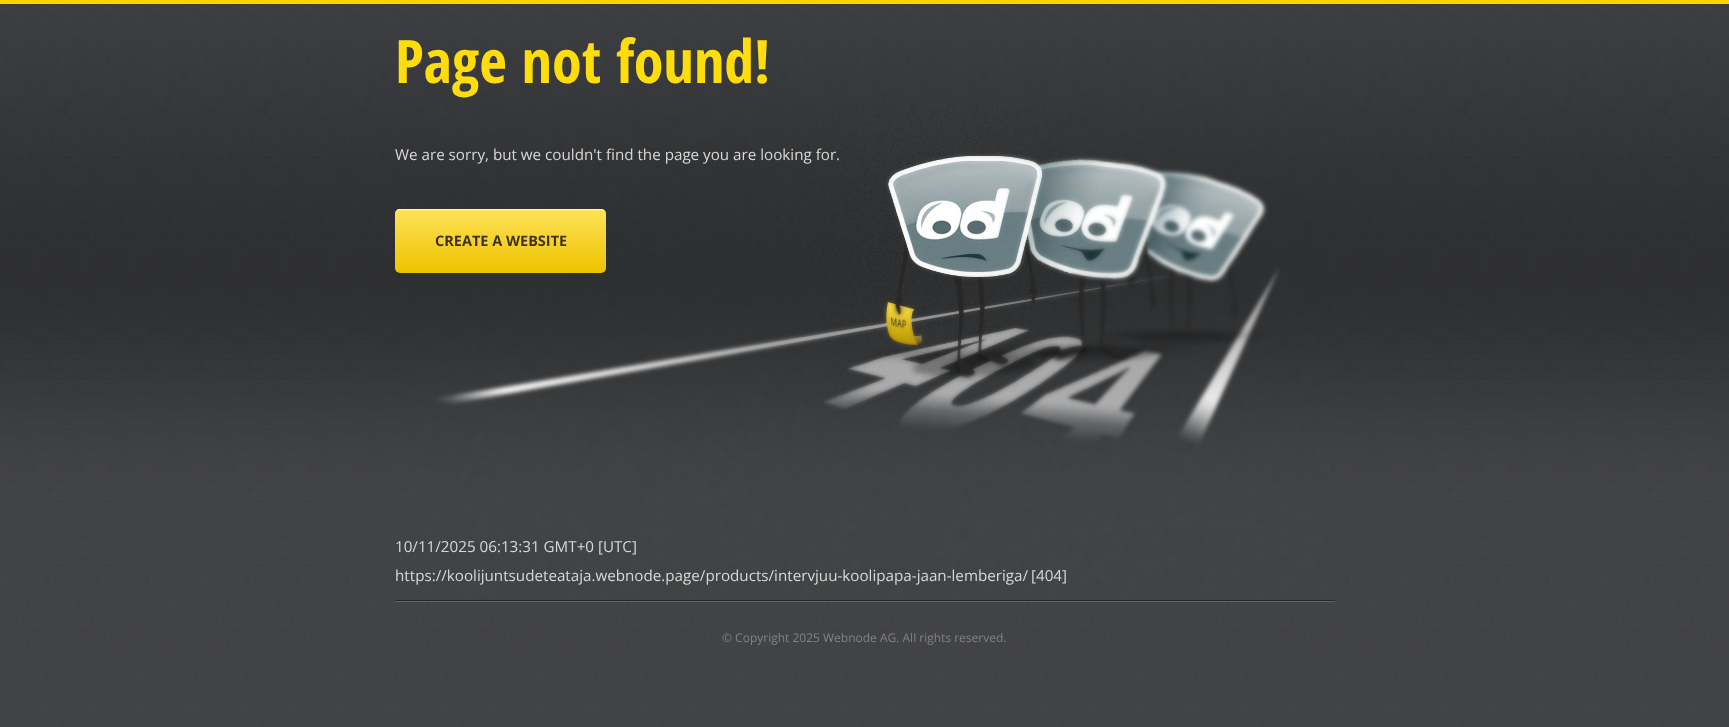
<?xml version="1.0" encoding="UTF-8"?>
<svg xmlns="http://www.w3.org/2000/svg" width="1729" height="727">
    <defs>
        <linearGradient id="g1" gradientUnits="userSpaceOnUse" x1="501" y1="209" x2="501" y2="273"><stop offset="0" stop-color="#FFE259"/><stop offset="1" stop-color="#EDC300"/></linearGradient>
    </defs>
    <rect width="100%" height="100%" fill="#FFFFFF"/>
    <image x="0" y="0" width="1729" height="727" href="img_01.png"/>
    <text x="395" y="83" font-family="Open Sans Condensed" font-size="60" font-weight="700" fill="#FFDD0B">Page not found!</text>
    <image x="406" y="100" width="925" height="497" href="img_02.png"/>
    <text x="395" y="160" font-family="Open Sans" font-size="15.2" fill="#D8D8D8">We are sorry, but we couldn't find the page you are looking for.</text>
    <rect x="395" y="209" width="211" height="64" rx="5" fill="url(#g1)"/>
    <path d="M 400 210 H 601 C 604 210 606 212 606 215 V 214 C 606 211 604 209 601 209 H 400 C 397 209 395 211 395 214 V 215 C 395 212 397 210 400 210 Z" fill="#FFFFFF" fill-opacity="0.67"/>
    <text x="435" y="246" font-family="Open Sans" font-size="14.5" font-weight="700" fill="#3F3400">CREATE A WEBSITE</text>
    <text font-family="Open Sans" font-size="15.2" fill="#D8D8D8">
        <tspan x="395" y="552">10/11/2025 06:13:31 GMT+0 [UTC]</tspan>
        <tspan x="395" y="581" word-spacing="-1">https://koolijuntsudeteataja.webnode.page/products/intervjuu-koolipapa-jaan-lemberiga/ [404]</tspan>
    </text>
    <image x="395" y="600" width="940" height="2" href="img_03.png"/>
    <text x="722" y="642" font-family="Open Sans" font-size="12" fill="#818283">© Copyright 2025 Webnode AG. All rights reserved.</text>
</svg>
